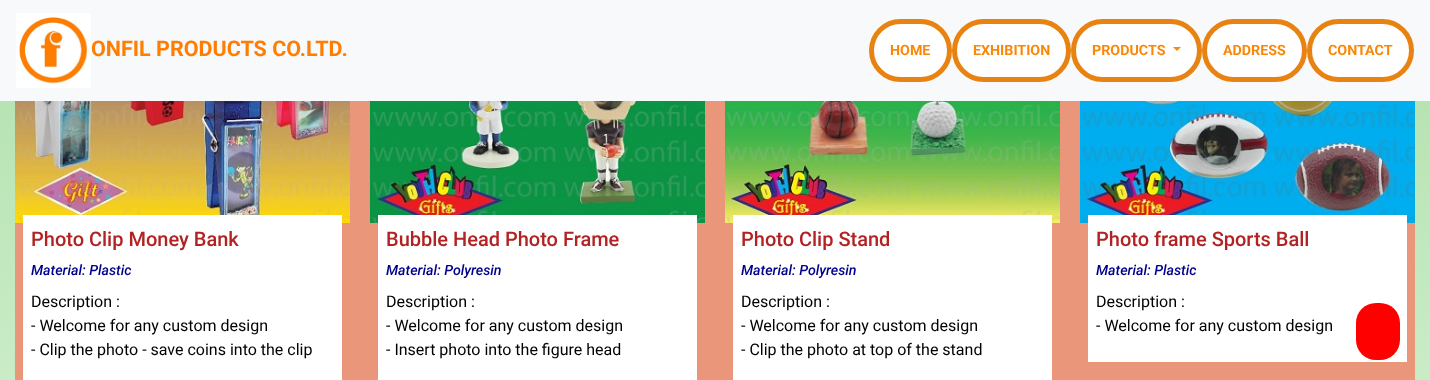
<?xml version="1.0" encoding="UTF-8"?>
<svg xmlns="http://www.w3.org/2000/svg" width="1430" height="380">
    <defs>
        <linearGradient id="g1" gradientUnits="userSpaceOnUse" x1="715" y1="-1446" x2="715" y2="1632"><stop offset="0" stop-color="#FDFDFD"/><stop offset="0.07" stop-color="#FFFFFF"/><stop offset="0.34" stop-color="#97D38E"/><stop offset="0.59" stop-color="#C9ECC7"/><stop offset="1" stop-color="#FCFFFD"/></linearGradient>
    </defs>
    <rect width="100%" height="100%" fill="#FFFFFF"/>
    <rect x="0" y="101" width="1430" height="279" fill="url(#g1)"/>
    <rect x="0" y="0" width="1430" height="101" fill="#F8F9FA"/>
    <image x="16" y="13" width="75" height="75" href="img_01.png"/>
    <text x="91" y="56" font-family="Roboto" font-size="21.5" font-weight="700" fill="#FF7D01">ONFIL PRODUCTS CO.LTD.</text>
    <rect x="871.5" y="21.5" width="78" height="58" rx="29" fill="#FFFFFF" stroke="#E88311" stroke-width="5"/>
    <text x="890" y="55" font-family="Roboto" font-size="14.25" font-weight="700" fill="#FB8706">HOME</text>
    <rect x="954.5" y="21.5" width="114" height="58" rx="29" fill="#FFFFFF" stroke="#E88311" stroke-width="5"/>
    <text x="973" y="55" font-family="Roboto" font-size="14.25" font-weight="700" fill="#FB8706">EXHIBITION</text>
    <rect x="1073.5" y="21.5" width="126" height="58" rx="29" fill="#FFFFFF" stroke="#E88311" stroke-width="5"/>
    <text x="1092" y="55" font-family="Roboto" font-size="14.25" font-weight="700" fill="#FB8706">PRODUCTS</text>
    <path d="M 1173 47 H 1181 L 1177 51 Z" fill="#FB8706"/>
    <rect x="1204.5" y="21.5" width="100" height="58" rx="29" fill="#FFFFFF" stroke="#E88311" stroke-width="5"/>
    <text x="1223" y="55" font-family="Roboto" font-size="14.25" font-weight="700" fill="#FB8706">ADDRESS</text>
    <rect x="1309.5" y="21.5" width="102" height="58" rx="29" fill="#FFFFFF" stroke="#E88311" stroke-width="5"/>
    <text x="1328" y="55" font-family="Roboto" font-size="14.25" font-weight="700" fill="#FB8706">CONTACT</text>
    <rect x="15" y="101" width="1400" height="279" fill="#E9967A"/>
    <image x="15" y="101" width="335" height="122" href="img_02.png"/>
    <rect x="23" y="215" width="319" height="165" fill="#FFFFFF"/>
    <text x="31" y="246" font-family="Roboto" font-size="20" font-weight="500" fill="#B22222">Photo Clip Money Bank</text>
    <text x="31" y="275" font-family="Roboto" font-size="14.25" font-weight="500" font-style="italic" fill="#00008B">Material: Plastic</text>
    <text font-family="Roboto" font-size="16" fill="#000000">
        <tspan x="31" y="307">Description :</tspan>
        <tspan x="31" y="331">- Welcome for any custom design</tspan>
        <tspan x="31" y="355">- Clip the photo - save coins into the clip</tspan>
    </text>
    <image x="370" y="101" width="335" height="122" href="img_03.png"/>
    <rect x="378" y="215" width="319" height="165" fill="#FFFFFF"/>
    <text x="386" y="246" font-family="Roboto" font-size="20" font-weight="500" fill="#B22222">Bubble Head Photo Frame</text>
    <text x="386" y="275" font-family="Roboto" font-size="14.25" font-weight="500" font-style="italic" fill="#00008B">Material: Polyresin</text>
    <text font-family="Roboto" font-size="16" fill="#000000">
        <tspan x="386" y="307">Description :</tspan>
        <tspan x="386" y="331">- Welcome for any custom design</tspan>
        <tspan x="386" y="355">- Insert photo into the figure head</tspan>
    </text>
    <image x="725" y="101" width="335" height="122" href="img_04.png"/>
    <rect x="733" y="215" width="319" height="165" fill="#FFFFFF"/>
    <text x="741" y="246" font-family="Roboto" font-size="20" font-weight="500" fill="#B22222">Photo Clip Stand</text>
    <text x="741" y="275" font-family="Roboto" font-size="14.25" font-weight="500" font-style="italic" fill="#00008B">Material: Polyresin</text>
    <text font-family="Roboto" font-size="16" fill="#000000">
        <tspan x="741" y="307">Description :</tspan>
        <tspan x="741" y="331">- Welcome for any custom design</tspan>
        <tspan x="741" y="355">- Clip the photo at top of the stand</tspan>
    </text>
    <image x="1080" y="101" width="335" height="122" href="img_05.png"/>
    <rect x="1088" y="215" width="319" height="147" fill="#FFFFFF"/>
    <text x="1096" y="246" font-family="Roboto" font-size="20" font-weight="500" fill="#B22222">Photo frame Sports Ball</text>
    <text x="1096" y="275" font-family="Roboto" font-size="14.25" font-weight="500" font-style="italic" fill="#00008B">Material: Plastic</text>
    <text font-family="Roboto" font-size="16" fill="#000000">
        <tspan x="1096" y="307">Description :</tspan>
        <tspan x="1096" y="331">- Welcome for any custom design</tspan>
    </text>
    <rect x="1356" y="303" width="44" height="57" rx="20" fill="#FF0000"/>
</svg>
